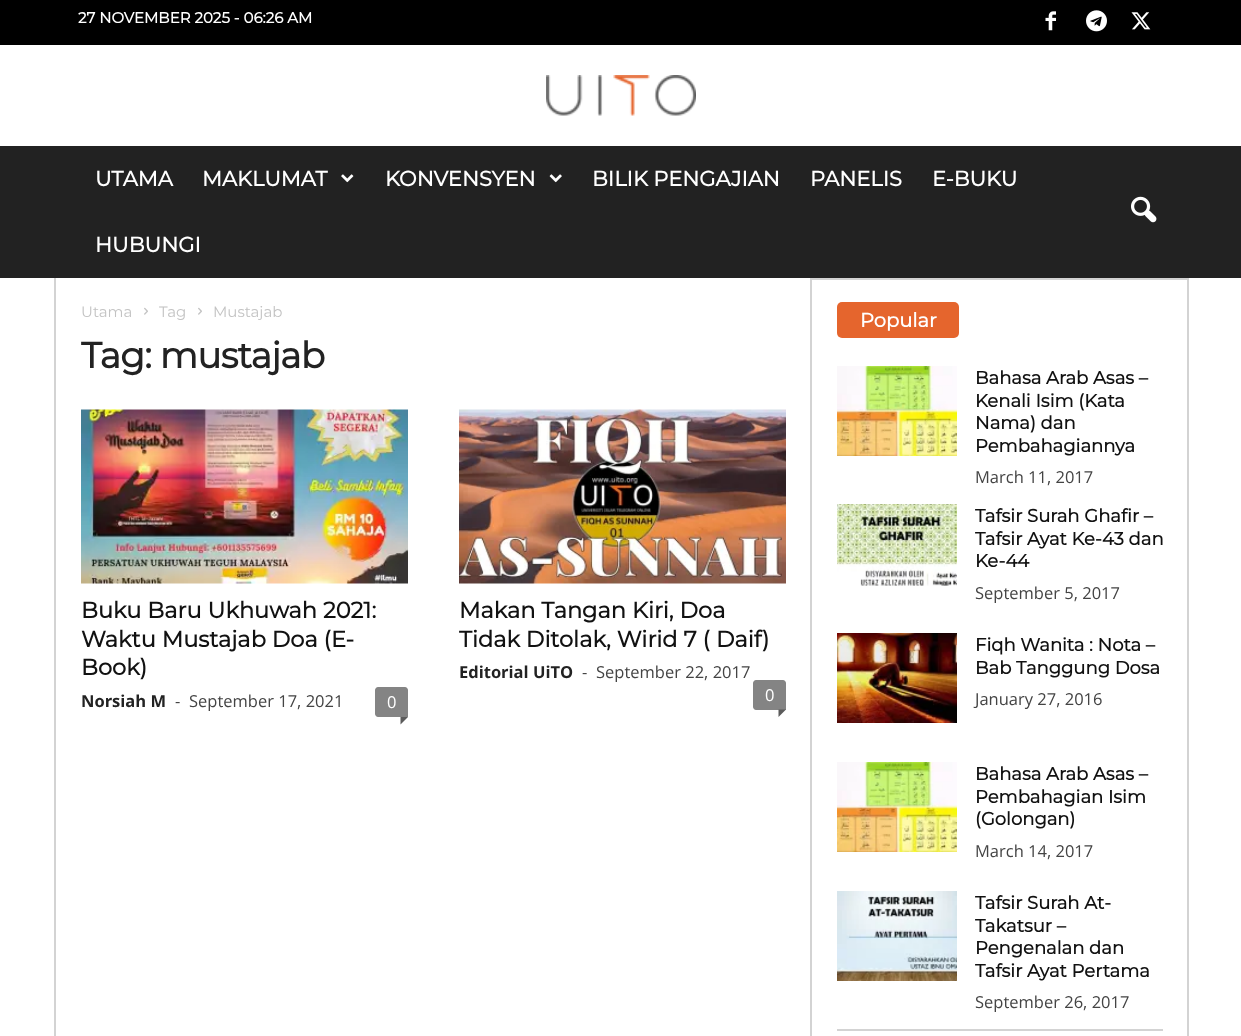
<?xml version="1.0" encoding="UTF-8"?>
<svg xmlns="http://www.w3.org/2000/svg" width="1241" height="1036">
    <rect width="100%" height="100%" fill="#FFFFFF"/>
    <rect x="0" y="0" width="1241" height="45" fill="#000000"/>
    <text x="78" y="23" font-family="Montserrat" font-size="15" font-weight="700" fill="#FFFFFF">27 NOVEMBER 2025 - 06:26 AM</text>
    <image x="1045" y="11" width="11" height="20" href="img_01.png"/>
    <image x="1086" y="10" width="21" height="22" href="img_02.png"/>
    <image x="1131" y="12" width="20" height="18" href="img_03.png"/>
    <image x="546" y="75" width="150" height="41" href="img_04.png"/>
    <rect x="0" y="146" width="1241" height="132" fill="#222222"/>
    <text x="95" y="186" font-family="Montserrat" font-size="21" font-weight="700" fill="#FFFFFF">UTAMA</text>
    <text x="202" y="186" font-family="Montserrat" font-size="21" font-weight="700" fill="#FFFFFF">MAKLUMAT</text>
    <image x="341" y="174" width="13" height="9" href="img_05.png"/>
    <text x="385" y="186" font-family="Montserrat" font-size="21" font-weight="700" fill="#FFFFFF">KONVENSYEN</text>
    <image x="549" y="174" width="13" height="9" href="img_06.png"/>
    <text x="592" y="186" font-family="Montserrat" font-size="21" font-weight="700" fill="#FFFFFF">BILIK PENGAJIAN</text>
    <text x="810" y="186" font-family="Montserrat" font-size="21" font-weight="700" fill="#FFFFFF">PANELIS</text>
    <text x="932" y="186" font-family="Montserrat" font-size="21" font-weight="700" fill="#FFFFFF">E-BUKU</text>
    <text x="95" y="252" font-family="Montserrat" font-size="21" font-weight="700" fill="#FFFFFF">HUBUNGI</text>
    <image x="1131" y="196" width="26" height="27" href="img_07.png"/>
    <rect x="54" y="278" width="2" height="758" fill="#D3D3D3"/>
    <text x="81" y="317" font-family="Montserrat" font-size="15" font-weight="100" fill="#C3C3C3">Utama</text>
    <image x="144" y="307" width="4" height="8" href="img_08.png"/>
    <text x="159" y="317" font-family="Montserrat" font-size="15" font-weight="100" fill="#C3C3C3">Tag</text>
    <image x="198" y="307" width="4" height="8" href="img_08.png"/>
    <text x="213" y="317" font-family="Montserrat" font-size="15" font-weight="100" fill="#C3C3C3">Mustajab</text>
    <text x="81" y="368" font-family="Montserrat" font-size="36" font-weight="700" letter-spacing="-0.75" fill="#222222">Tag: mustajab</text>
    <image x="81" y="409" width="327" height="175" href="img_09.png"/>
    <text font-family="Montserrat" font-size="22.5" font-weight="700" fill="#111111">
        <tspan x="81" y="618">Buku Baru Ukhuwah 2021:</tspan>
        <tspan x="81" y="647">Waktu Mustajab Doa (E-</tspan>
        <tspan x="81" y="675">Book)</tspan>
    </text>
    <text x="81" y="707" font-family="Open Sans" font-size="16.5" font-weight="700" fill="#222222">Norsiah M</text>
    <text x="175" y="707" font-family="Open Sans" font-size="16.5" fill="#444444">-</text>
    <text x="189" y="707" font-family="Open Sans" font-size="16.5" fill="#444444">September 17, 2021</text>
    <path d="M 378 687 H 405 C 406.5 687 408 688.5 408 690 V 717 H 378 C 376.5 717 375 715.5 375 714 V 690 C 375 688.5 376.5 687 378 687 Z" fill="#848484"/>
    <text x="387" y="708" font-family="Open Sans" font-size="16.5" fill="#FFFFFF">0</text>
    <path d="M 400.5 717 H 408 L 400.5 724.5 Z" fill="#5B5B5B"/>
    <image x="459" y="409" width="327" height="175" href="img_10.png"/>
    <text font-family="Montserrat" font-size="22.5" font-weight="700" fill="#111111">
        <tspan x="459" y="618">Makan Tangan Kiri, Doa</tspan>
        <tspan x="459" y="647">Tidak Ditolak, Wirid 7 ( Daif)</tspan>
    </text>
    <text x="459" y="678" font-family="Open Sans" font-size="16.5" font-weight="700" fill="#222222">Editorial UiTO</text>
    <text x="582" y="678" font-family="Open Sans" font-size="16.5" fill="#444444">-</text>
    <text x="596" y="678" font-family="Open Sans" font-size="16.5" fill="#444444">September 22, 2017</text>
    <path d="M 756 680 H 783 C 784.5 680 786 681.5 786 683 V 710 H 756 C 754.5 710 753 708.5 753 707 V 683 C 753 681.5 754.5 680 756 680 Z" fill="#848484"/>
    <text x="765" y="701" font-family="Open Sans" font-size="16.5" fill="#FFFFFF">0</text>
    <path d="M 778.5 709.5 H 786 L 778.5 717 Z" fill="#5B5B5B"/>
    <rect x="810" y="278" width="2" height="758" fill="#D3D3D3"/>
    <rect x="1187" y="278" width="2" height="758" fill="#D3D3D3"/>
    <rect x="812" y="278" width="376" height="2" fill="#D3D3D3"/>
    <rect x="837" y="302" width="122" height="36" rx="5" fill="#E5652D"/>
    <text x="860" y="327" font-family="Montserrat" font-size="19.5" font-weight="700" fill="#FFFFFF">Popular</text>
    <image x="837" y="366" width="120" height="90" href="img_11.png"/>
    <text font-family="Montserrat" font-size="18" font-weight="700" fill="#111111">
        <tspan x="975" y="384">Bahasa Arab Asas –</tspan>
        <tspan x="975" y="407">Kenali Isim (Kata</tspan>
        <tspan x="975" y="429">Nama) dan</tspan>
        <tspan x="975" y="452">Pembahagiannya</tspan>
    </text>
    <text x="975" y="483" font-family="Open Sans" font-size="16.5" fill="#444444">March 11, 2017</text>
    <image x="837" y="504" width="120" height="82" href="img_12.png"/>
    <text font-family="Montserrat" font-size="18" font-weight="700" fill="#111111">
        <tspan x="975" y="522">Tafsir Surah Ghafir –</tspan>
        <tspan x="975" y="545">Tafsir Ayat Ke-43 dan</tspan>
        <tspan x="975" y="567">Ke-44</tspan>
    </text>
    <text x="975" y="599" font-family="Open Sans" font-size="16.5" fill="#444444">September 5, 2017</text>
    <image x="837" y="633" width="120" height="90" href="img_13.png"/>
    <text font-family="Montserrat" font-size="18" font-weight="700" fill="#111111">
        <tspan x="975" y="651">Fiqh Wanita : Nota –</tspan>
        <tspan x="975" y="674">Bab Tanggung Dosa</tspan>
    </text>
    <text x="975" y="705" font-family="Open Sans" font-size="16.5" fill="#444444">January 27, 2016</text>
    <image x="837" y="762" width="120" height="90" href="img_11.png"/>
    <text font-family="Montserrat" font-size="18" font-weight="700" fill="#111111">
        <tspan x="975" y="780">Bahasa Arab Asas –</tspan>
        <tspan x="975" y="803">Pembahagian Isim</tspan>
        <tspan x="975" y="825">(Golongan)</tspan>
    </text>
    <text x="975" y="857" font-family="Open Sans" font-size="16.5" fill="#444444">March 14, 2017</text>
    <image x="837" y="891" width="120" height="90" href="img_14.png"/>
    <text font-family="Montserrat" font-size="18" font-weight="700" fill="#111111">
        <tspan x="975" y="909">Tafsir Surah At-</tspan>
        <tspan x="975" y="932">Takatsur –</tspan>
        <tspan x="975" y="954">Pengenalan dan</tspan>
        <tspan x="975" y="977">Tafsir Ayat Pertama</tspan>
    </text>
    <text x="975" y="1008" font-family="Open Sans" font-size="16.5" fill="#444444">September 26, 2017</text>
    <rect x="837" y="1029" width="326" height="2" fill="#D3D3D3"/>
</svg>
